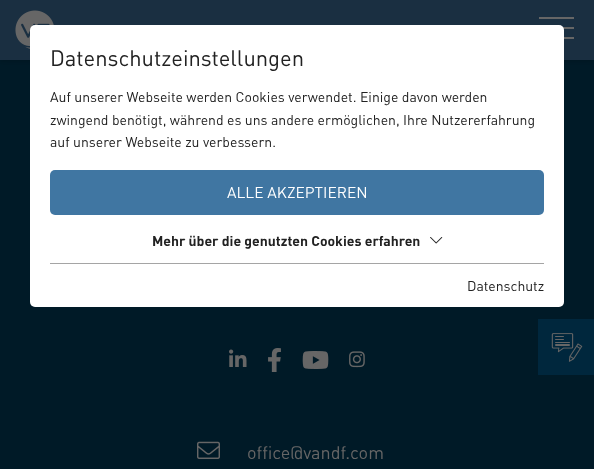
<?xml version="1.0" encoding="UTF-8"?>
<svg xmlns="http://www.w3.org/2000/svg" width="594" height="469">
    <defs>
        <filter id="blur1" x="-50%" y="-200%" width="200%" height="500%"><feGaussianBlur stdDeviation="3"/></filter>
    </defs>
    <rect width="100%" height="100%" fill="#001A27"/>
    <rect x="0" y="0" width="594" height="60" fill="#000000" fill-opacity="0.26" filter="url(#blur1)"/>
    <rect x="0" y="0" width="594" height="60" fill="#1A2F41"/>
    <image x="15" y="10" width="39" height="39" href="img_01.png"/>
    <rect x="539" y="17" width="35" height="2" fill="#666666"/>
    <rect x="563" y="27" width="11" height="2" fill="#666666"/>
    <rect x="564" y="37" width="10" height="2" fill="#666666"/>
    <rect x="30" y="25" width="534" height="282" rx="5" fill="#FFFFFF"/>
    <text x="50" y="66" font-family="DIN" font-size="22" fill="#222222">Datenschutzeinstellungen</text>
    <text font-family="DIN" font-size="14" fill="#222222">
        <tspan x="50" y="102">Auf unserer Webseite werden Cookies verwendet. Einige davon werden</tspan>
        <tspan x="50" y="125">zwingend benötigt, während es uns andere ermöglichen, Ihre Nutzererfahrung</tspan>
        <tspan x="50" y="147">auf unserer Webseite zu verbessern.</tspan>
    </text>
    <rect x="50" y="170" width="494" height="45" rx="5" fill="#4076A2"/>
    <text x="227" y="198" font-family="DIN" font-size="15.5" fill="#FFFFFF">ALLE AKZEPTIEREN</text>
    <text x="152" y="246" font-family="DIN" font-size="14" font-weight="700" fill="#222222">Mehr über die genutzten Cookies erfahren</text>
    <image x="430" y="237" width="13" height="7" href="img_02.png"/>
    <rect x="50" y="263" width="494" height="1" fill="#A5A5A5"/>
    <text x="467" y="291" font-family="DIN" font-size="14" fill="#222222">Datenschutz</text>
    <rect x="538" y="319" width="56" height="56" fill="#00273D"/>
    <image x="551" y="333" width="32" height="29" href="img_03.png"/>
    <image x="229" y="349" width="18" height="18" href="img_04.png"/>
    <image x="268" y="348" width="13" height="24" href="img_05.png"/>
    <image x="302" y="351" width="27" height="18" href="img_06.png"/>
    <image x="349" y="351" width="16" height="17" href="img_07.png"/>
    <image x="197" y="441" width="23" height="18" href="img_08.png"/>
    <text x="247" y="459" font-family="DIN" font-size="18" fill="#666666">office@vandf.com</text>
</svg>
